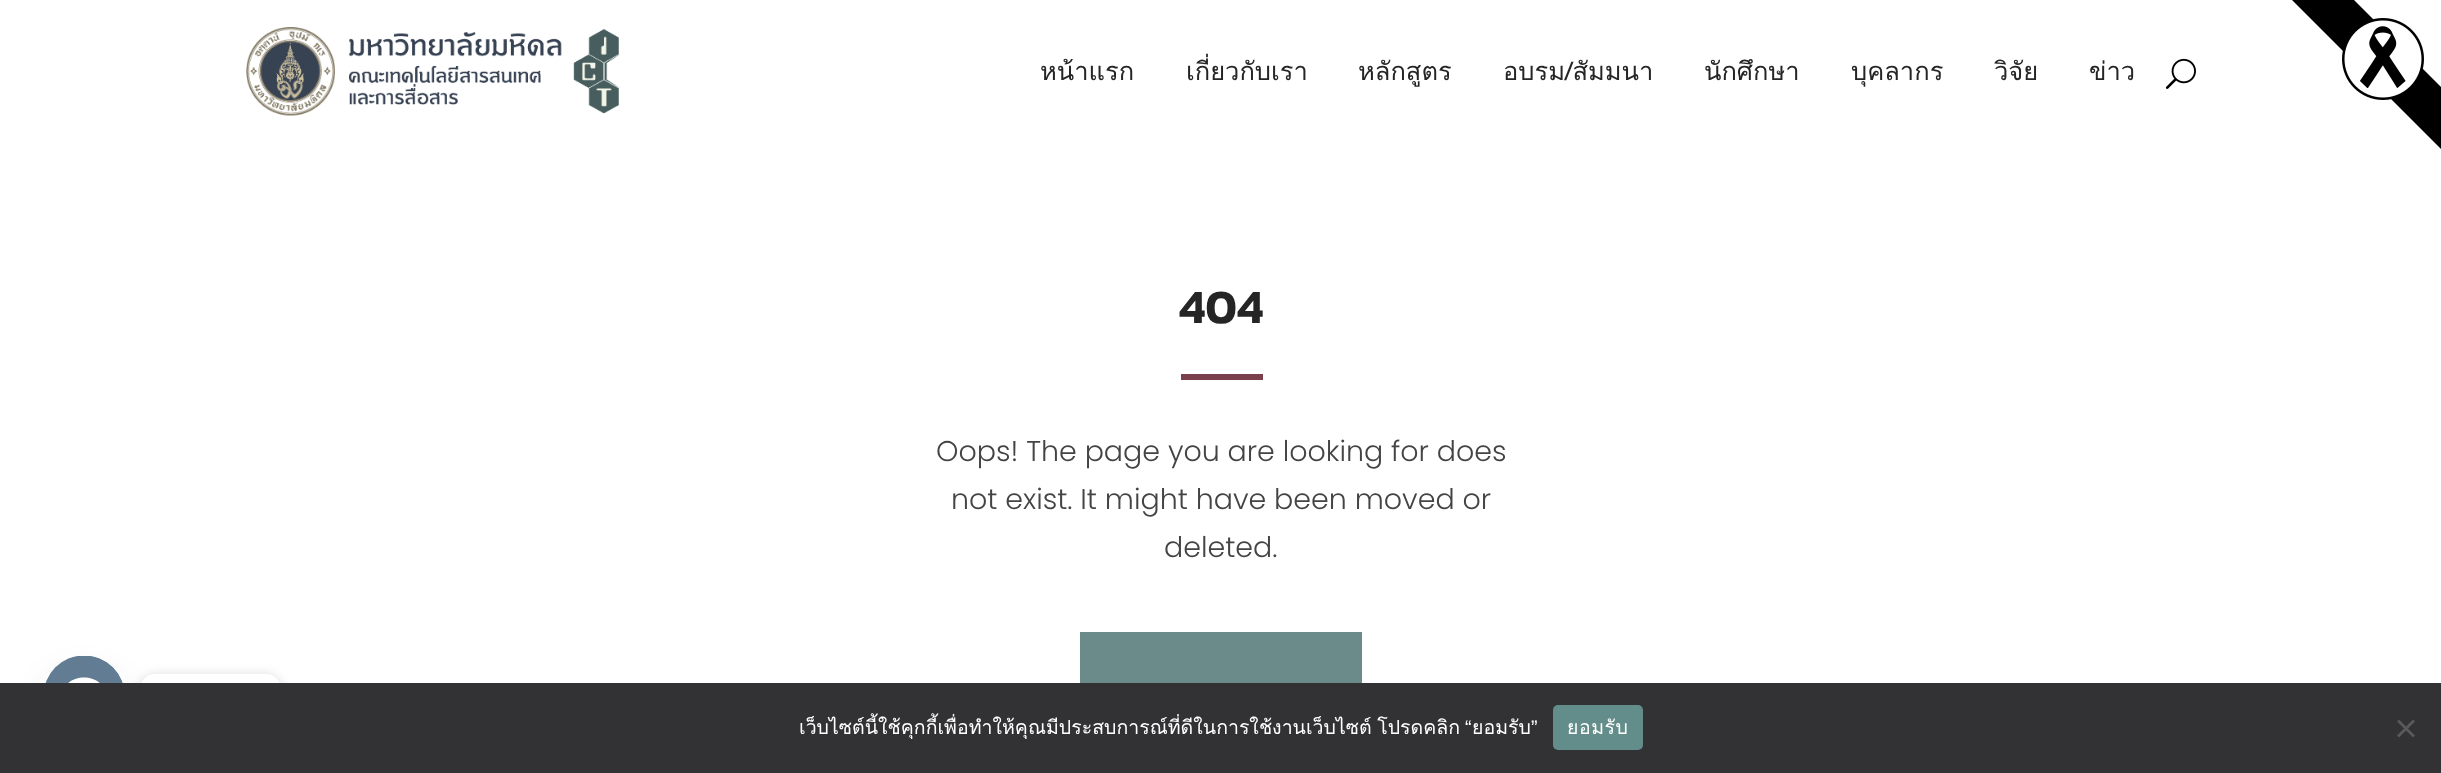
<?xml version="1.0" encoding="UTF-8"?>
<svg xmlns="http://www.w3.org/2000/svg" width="2441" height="773">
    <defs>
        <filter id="blur1" x="-50%" y="-200%" width="200%" height="500%"><feGaussianBlur stdDeviation="18"/></filter>
        <clipPath id="clip1"><rect x="44" y="656" width="81" height="81"/></clipPath>
        <filter id="blur2" x="-50%" y="-200%" width="200%" height="500%"><feGaussianBlur stdDeviation="6"/></filter>
    </defs>
    <rect width="100%" height="100%" fill="#FFFFFF"/>
    <image x="246" y="27" width="374" height="89" href="img_01.png"/>
    <text x="1040" y="80" font-family="Loma" font-size="25.5" fill="#252525">หน้าแรก</text>
    <text x="1186" y="80" font-family="Loma" font-size="25.5" fill="#252525">เกี่ยวกับเรา</text>
    <text x="1358" y="80" font-family="Loma" font-size="25.5" fill="#252525">หลักสูตร</text>
    <text x="1503" y="80" font-family="Loma" font-size="25.5" fill="#252525">อบรม/สัมมนา</text>
    <text x="1704" y="80" font-family="Loma" font-size="25.5" fill="#252525">นักศึกษา</text>
    <text x="1851" y="80" font-family="Loma" font-size="25.5" fill="#252525">บุคลากร</text>
    <text x="1994" y="80" font-family="Loma" font-size="25.5" fill="#252525">วิจัย</text>
    <text x="2089" y="80" font-family="Loma" font-size="25.5" fill="#252525">ข่าว</text>
    <image x="2165" y="58" width="31" height="31" href="img_02.png"/>
    <text x="1179" y="323" font-family="Kanit" font-size="48" font-weight="600" fill="#252525">404</text>
    <rect x="1181" y="374" width="82" height="6" fill="#7A404C"/>
    <text x="936" y="461" font-family="Poppins" font-size="28.5" font-weight="300" fill="#444444">Oops! The page you are looking for does</text>
    <text x="951" y="509" font-family="Poppins" font-size="28.5" font-weight="300" fill="#444444">not exist. It might have been moved or</text>
    <text x="1164" y="557" font-family="Poppins" font-size="28.5" font-weight="300" fill="#444444">deleted.</text>
    <rect x="1080" y="632" width="282" height="51" fill="#6B8B8A"/>
    <path d="M 2292 -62 L 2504 150 L 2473 181 L 2261 -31 Z" fill="#000000"/>
    <image x="2342" y="18" width="82" height="82" href="img_03.png"/>
    <rect x="44" y="680" width="81" height="81" rx="40.5" fill="#5C646A" fill-opacity="0.16" filter="url(#blur1)"/>
    <circle cx="84.5" cy="696.5" r="40.5" fill="#627C93"/>
    <g clip-path="url(#clip1)">
        <circle cx="84" cy="696" r="40.5" fill="#627C93"/>
    </g>
    <path d="M 62 697 C 62 671 106 671 106 697 C 106 702 103 707 99 711 C 94 716 85 718 78 716 L 70 720 V 713 C 65 709 62 703 62 697 Z M 81 698 L 86 704 L 98 691 L 87 697 L 82 691 L 70 704 Z" fill="#FFFFFF" fill-rule="evenodd"/>
    <rect x="140" y="675" width="141" height="47" rx="15" fill="#000000" fill-opacity="0.15" filter="url(#blur2)"/>
    <rect x="140" y="674" width="141" height="46" rx="15" fill="#FFFFFF"/>
    <rect x="0" y="683" width="2441" height="90" fill="#323234"/>
    <text x="799" y="734" word-spacing="-1" font-family="Loma" font-size="19.5" fill="#FFFFFF">เว็บไซต์นี้ใช้คุกกี้เพื่อทำให้คุณมีประสบการณ์ที่ดีในการใช้งานเว็บไซต์ โปรดคลิก</text>
    <text x="1465" y="734" font-family="Liberation Sans" font-size="19.5" fill="#FFFFFF">“</text>
    <text x="1472" y="734" font-family="Loma" font-size="19.5" fill="#FFFFFF">ยอมรับ</text>
    <text x="1531" y="734" font-family="Liberation Sans" font-size="19.5" fill="#FFFFFF">”</text>
    <rect x="1553" y="705" width="90" height="45" rx="5" fill="#638D8A"/>
    <text x="1567" y="734" font-family="Loma" font-size="19.5" letter-spacing="0.5" fill="#FFFFFF">ยอมรับ</text>
    <path d="M 2413 719.5 L 2415 721.5 L 2399 737.5 L 2397 735.5 Z" fill="#59595A"/>
    <path d="M 2397 721.5 L 2399 719.5 L 2415 735.5 L 2413 737.5 Z" fill="#59595A"/>
</svg>
